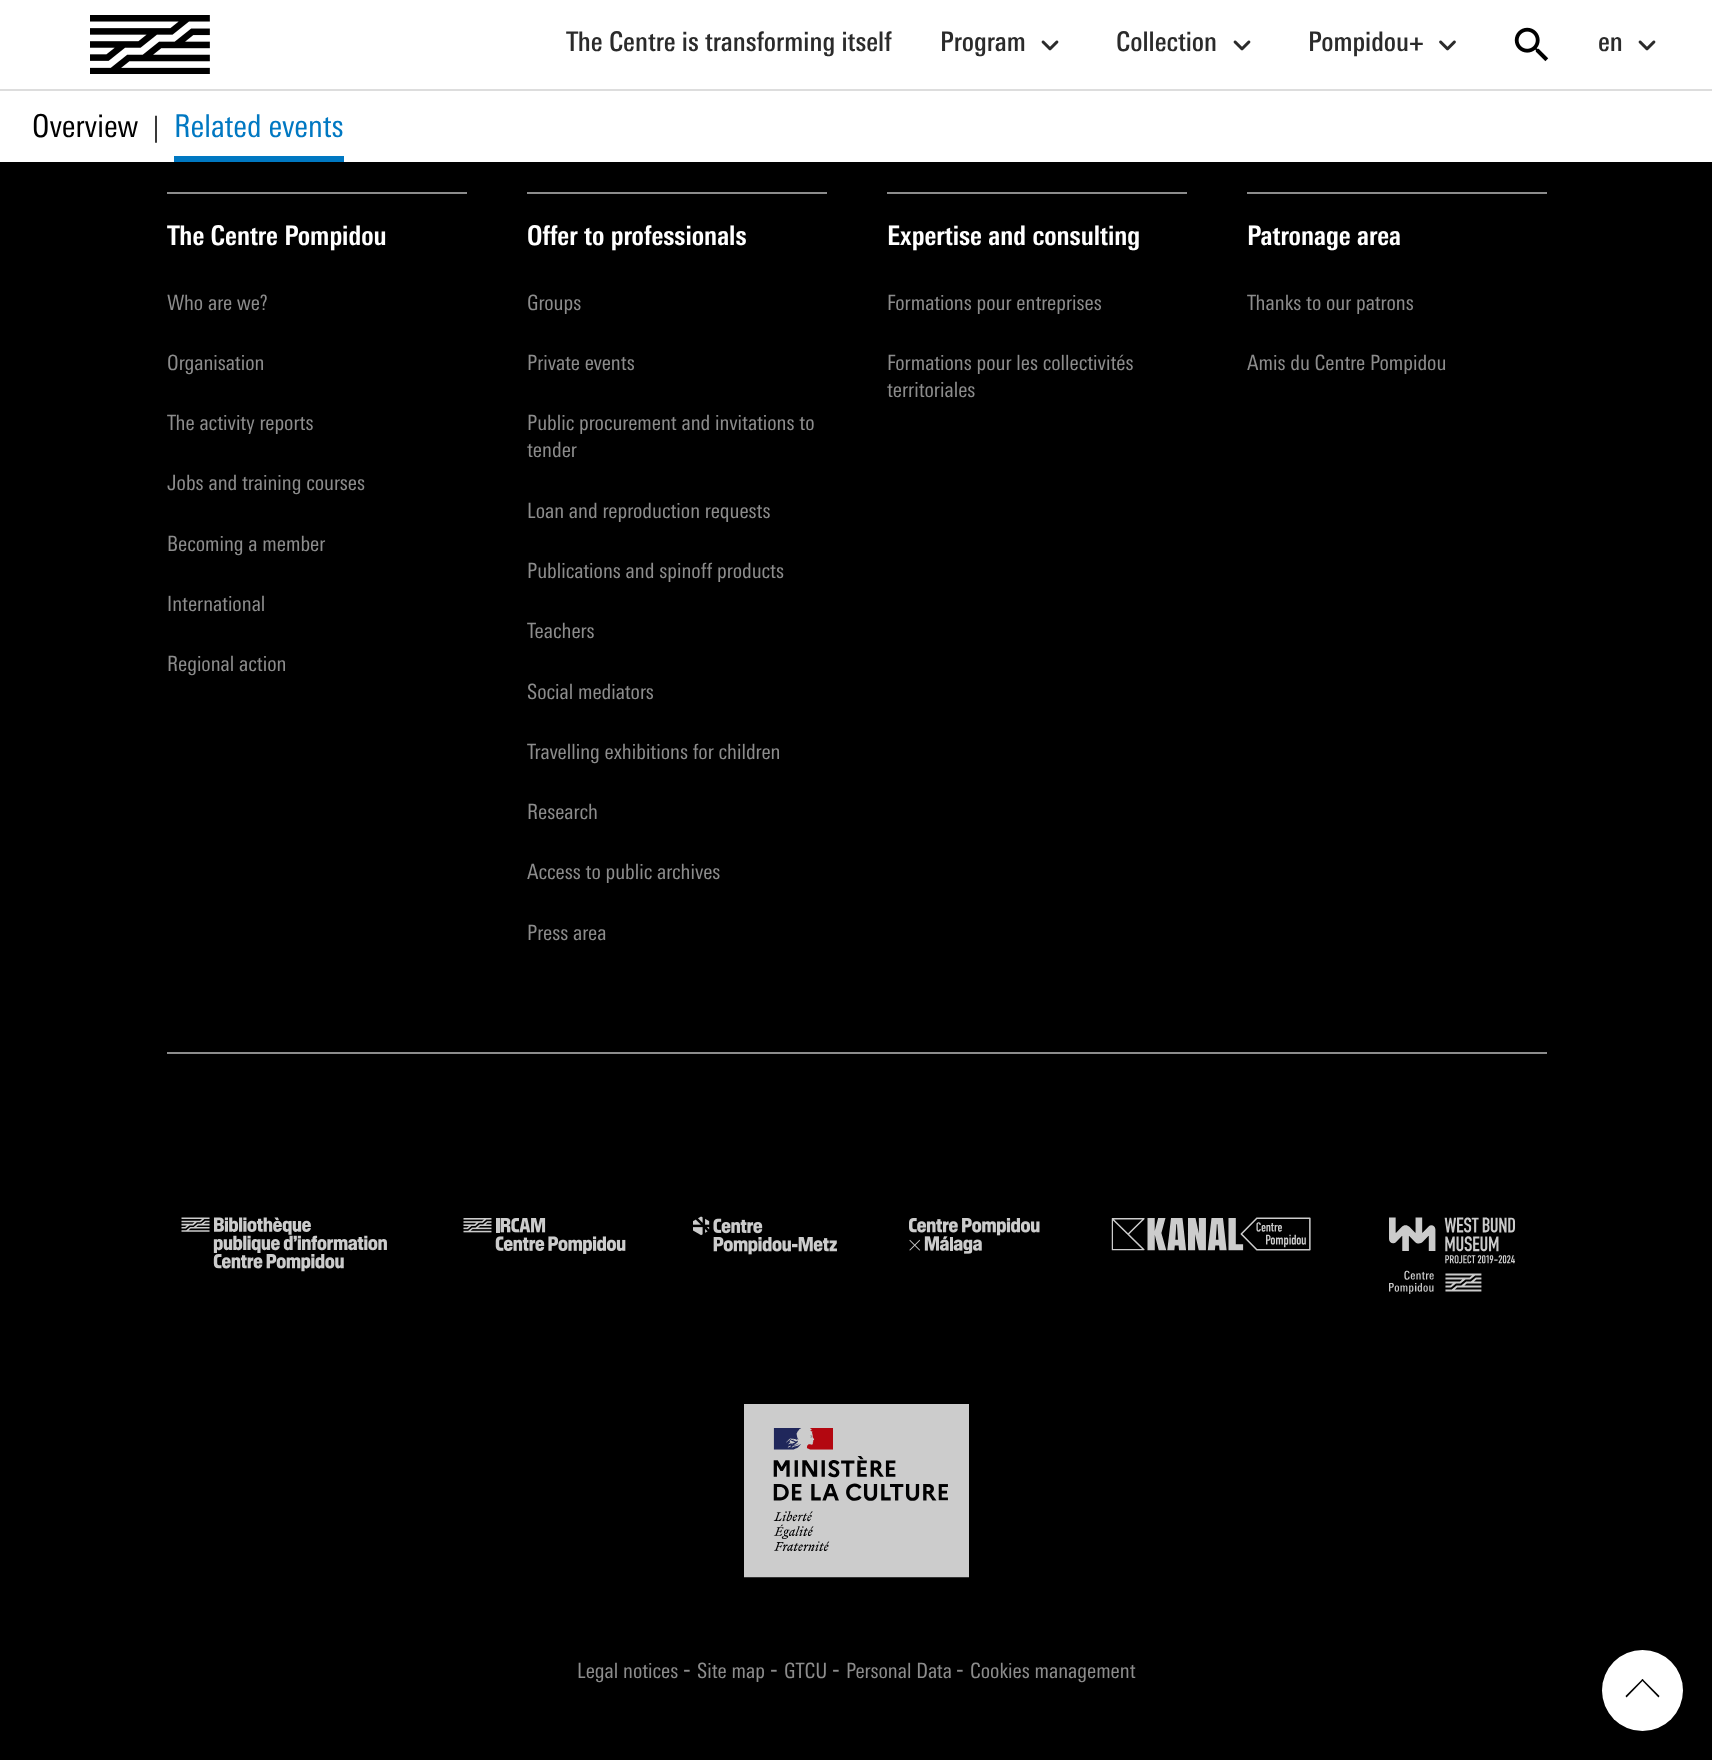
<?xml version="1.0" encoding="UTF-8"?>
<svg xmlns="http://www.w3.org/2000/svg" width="1712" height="1760">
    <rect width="100%" height="100%" fill="#000000"/>
    <rect x="0" y="0" width="1712" height="89" fill="#FFFFFF"/>
    <rect x="0" y="89" width="1712" height="2" fill="#DDDDDD"/>
    <image x="90" y="15" width="120" height="59" href="img_01.png"/>
    <text x="566" y="51" font-family="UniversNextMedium" font-size="27" font-weight="500" fill="#2B2B2B">The Centre is transforming itself</text>
    <text x="940" y="51" font-family="UniversNextMedium" font-size="27" font-weight="500" fill="#2B2B2B">Program</text>
    <image x="1041" y="40" width="18" height="11" href="img_02.png"/>
    <text x="1116" y="51" font-family="UniversNextMedium" font-size="27" font-weight="500" fill="#2B2B2B">Collection</text>
    <image x="1233" y="40" width="18" height="11" href="img_02.png"/>
    <text x="1308" y="51" font-family="UniversNextMedium" font-size="27" font-weight="500" fill="#2B2B2B">Pompidou+</text>
    <image x="1439" y="40" width="17" height="11" href="img_03.png"/>
    <image x="1514" y="27" width="35" height="35" href="img_04.png"/>
    <text x="1598" y="51" font-family="UniversNextMedium" font-size="27" font-weight="500" fill="#2B2B2B">en</text>
    <image x="1638" y="40" width="18" height="11" href="img_02.png"/>
    <rect x="0" y="91" width="1712" height="71" fill="#FFFFFF"/>
    <text x="32" y="137" font-family="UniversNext" font-size="31.5" fill="#000000">Overview</text>
    <text x="153" y="137" font-family="UniversNext" font-size="27" fill="#333333">|</text>
    <text x="174" y="137" font-family="UniversNext" font-size="31.5" fill="#0078C2">Related events</text>
    <rect x="174" y="156" width="170" height="6" fill="#0078C2"/>
    <rect x="167" y="192" width="300" height="2" fill="#8C8C8C"/>
    <text x="167" y="245" font-family="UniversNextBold" font-size="27" font-weight="700" fill="#FFFFFF">The Centre Pompidou</text>
    <text x="167" y="310" font-family="UniversNext" font-size="21" fill="#8C8C8C">Who are we?</text>
    <text x="167" y="370" font-family="UniversNext" font-size="21" fill="#8C8C8C">Organisation</text>
    <text x="167" y="430" font-family="UniversNext" font-size="21" fill="#8C8C8C">The activity reports</text>
    <text x="167" y="490" font-family="UniversNext" font-size="21" fill="#8C8C8C">Jobs and training courses</text>
    <text x="167" y="551" font-family="UniversNext" font-size="21" fill="#8C8C8C">Becoming a member</text>
    <text x="167" y="611" font-family="UniversNext" font-size="21" fill="#8C8C8C">International</text>
    <text x="167" y="671" font-family="UniversNext" font-size="21" fill="#8C8C8C">Regional action</text>
    <rect x="527" y="192" width="300" height="2" fill="#8C8C8C"/>
    <text x="527" y="245" font-family="UniversNextBold" font-size="27" font-weight="700" fill="#FFFFFF">Offer to professionals</text>
    <text x="527" y="310" font-family="UniversNext" font-size="21" fill="#8C8C8C">Groups</text>
    <text x="527" y="370" font-family="UniversNext" font-size="21" fill="#8C8C8C">Private events</text>
    <text font-family="UniversNext" font-size="21" fill="#8C8C8C">
        <tspan x="527" y="430">Public procurement and invitations to</tspan>
        <tspan x="527" y="457">tender</tspan>
    </text>
    <text x="527" y="518" font-family="UniversNext" font-size="21" fill="#8C8C8C">Loan and reproduction requests</text>
    <text x="527" y="578" font-family="UniversNext" font-size="21" fill="#8C8C8C">Publications and spinoff products</text>
    <text x="527" y="638" font-family="UniversNext" font-size="21" fill="#8C8C8C">Teachers</text>
    <text x="527" y="699" font-family="UniversNext" font-size="21" fill="#8C8C8C">Social mediators</text>
    <text x="527" y="759" font-family="UniversNext" font-size="21" fill="#8C8C8C">Travelling exhibitions for children</text>
    <text x="527" y="819" font-family="UniversNext" font-size="21" fill="#8C8C8C">Research</text>
    <text x="527" y="879" font-family="UniversNext" font-size="21" fill="#8C8C8C">Access to public archives</text>
    <text x="527" y="940" font-family="UniversNext" font-size="21" fill="#8C8C8C">Press area</text>
    <rect x="887" y="192" width="300" height="2" fill="#8C8C8C"/>
    <text x="887" y="245" font-family="UniversNextBold" font-size="27" font-weight="700" fill="#FFFFFF">Expertise and consulting</text>
    <text x="887" y="310" font-family="UniversNext" font-size="21" fill="#8C8C8C">Formations pour entreprises</text>
    <text font-family="UniversNext" font-size="21" fill="#8C8C8C">
        <tspan x="887" y="370">Formations pour les collectivités</tspan>
        <tspan x="887" y="397">territoriales</tspan>
    </text>
    <rect x="1247" y="192" width="300" height="2" fill="#8C8C8C"/>
    <text x="1247" y="245" font-family="UniversNextBold" font-size="27" font-weight="700" fill="#FFFFFF">Patronage area</text>
    <text x="1247" y="310" font-family="UniversNext" font-size="21" fill="#8C8C8C">Thanks to our patrons</text>
    <text x="1247" y="370" font-family="UniversNext" font-size="21" fill="#8C8C8C">Amis du Centre Pompidou</text>
    <rect x="167" y="1052" width="1380" height="2" fill="#8C8C8C"/>
    <image x="181" y="1217" width="206" height="55" href="img_05.png"/>
    <image x="463" y="1218" width="163" height="36" href="img_06.png"/>
    <image x="693" y="1216" width="144" height="39" href="img_07.png"/>
    <image x="909" y="1218" width="131" height="36" href="img_08.png"/>
    <image x="1111" y="1217" width="200" height="34" href="img_09.png"/>
    <image x="1389" y="1217" width="126" height="77" href="img_10.png"/>
    <image x="744" y="1404" width="225" height="174" href="img_11.png"/>
    <text x="577" y="1678" font-family="UniversNext" font-size="21" fill="#8C8C8C">Legal notices</text>
    <text x="683" y="1678" font-family="UniversNext" font-size="27" fill="#8C8C8C">-</text>
    <text x="697" y="1678" font-family="UniversNext" font-size="21" fill="#8C8C8C">Site map</text>
    <text x="770" y="1678" font-family="UniversNext" font-size="27" fill="#8C8C8C">-</text>
    <text x="784" y="1678" font-family="UniversNext" font-size="21" fill="#8C8C8C">GTCU</text>
    <text x="832" y="1678" font-family="UniversNext" font-size="27" fill="#8C8C8C">-</text>
    <text x="846" y="1678" font-family="UniversNext" font-size="21" fill="#8C8C8C">Personal Data</text>
    <text x="956" y="1678" font-family="UniversNext" font-size="27" fill="#8C8C8C">-</text>
    <text x="970" y="1678" font-family="UniversNext" font-size="21" fill="#8C8C8C">Cookies management</text>
    <circle cx="1642.5" cy="1690.5" r="40.5" fill="#FFFFFF"/>
    <path d="M 1642.5 1679 L 1659.5 1696 L 1658.5 1697.5 L 1641.5 1680 Z" fill="#000000"/>
    <path d="M 1642.5 1679 L 1643.5 1680 L 1626.5 1697.5 L 1625.5 1696 Z" fill="#000000"/>
</svg>
